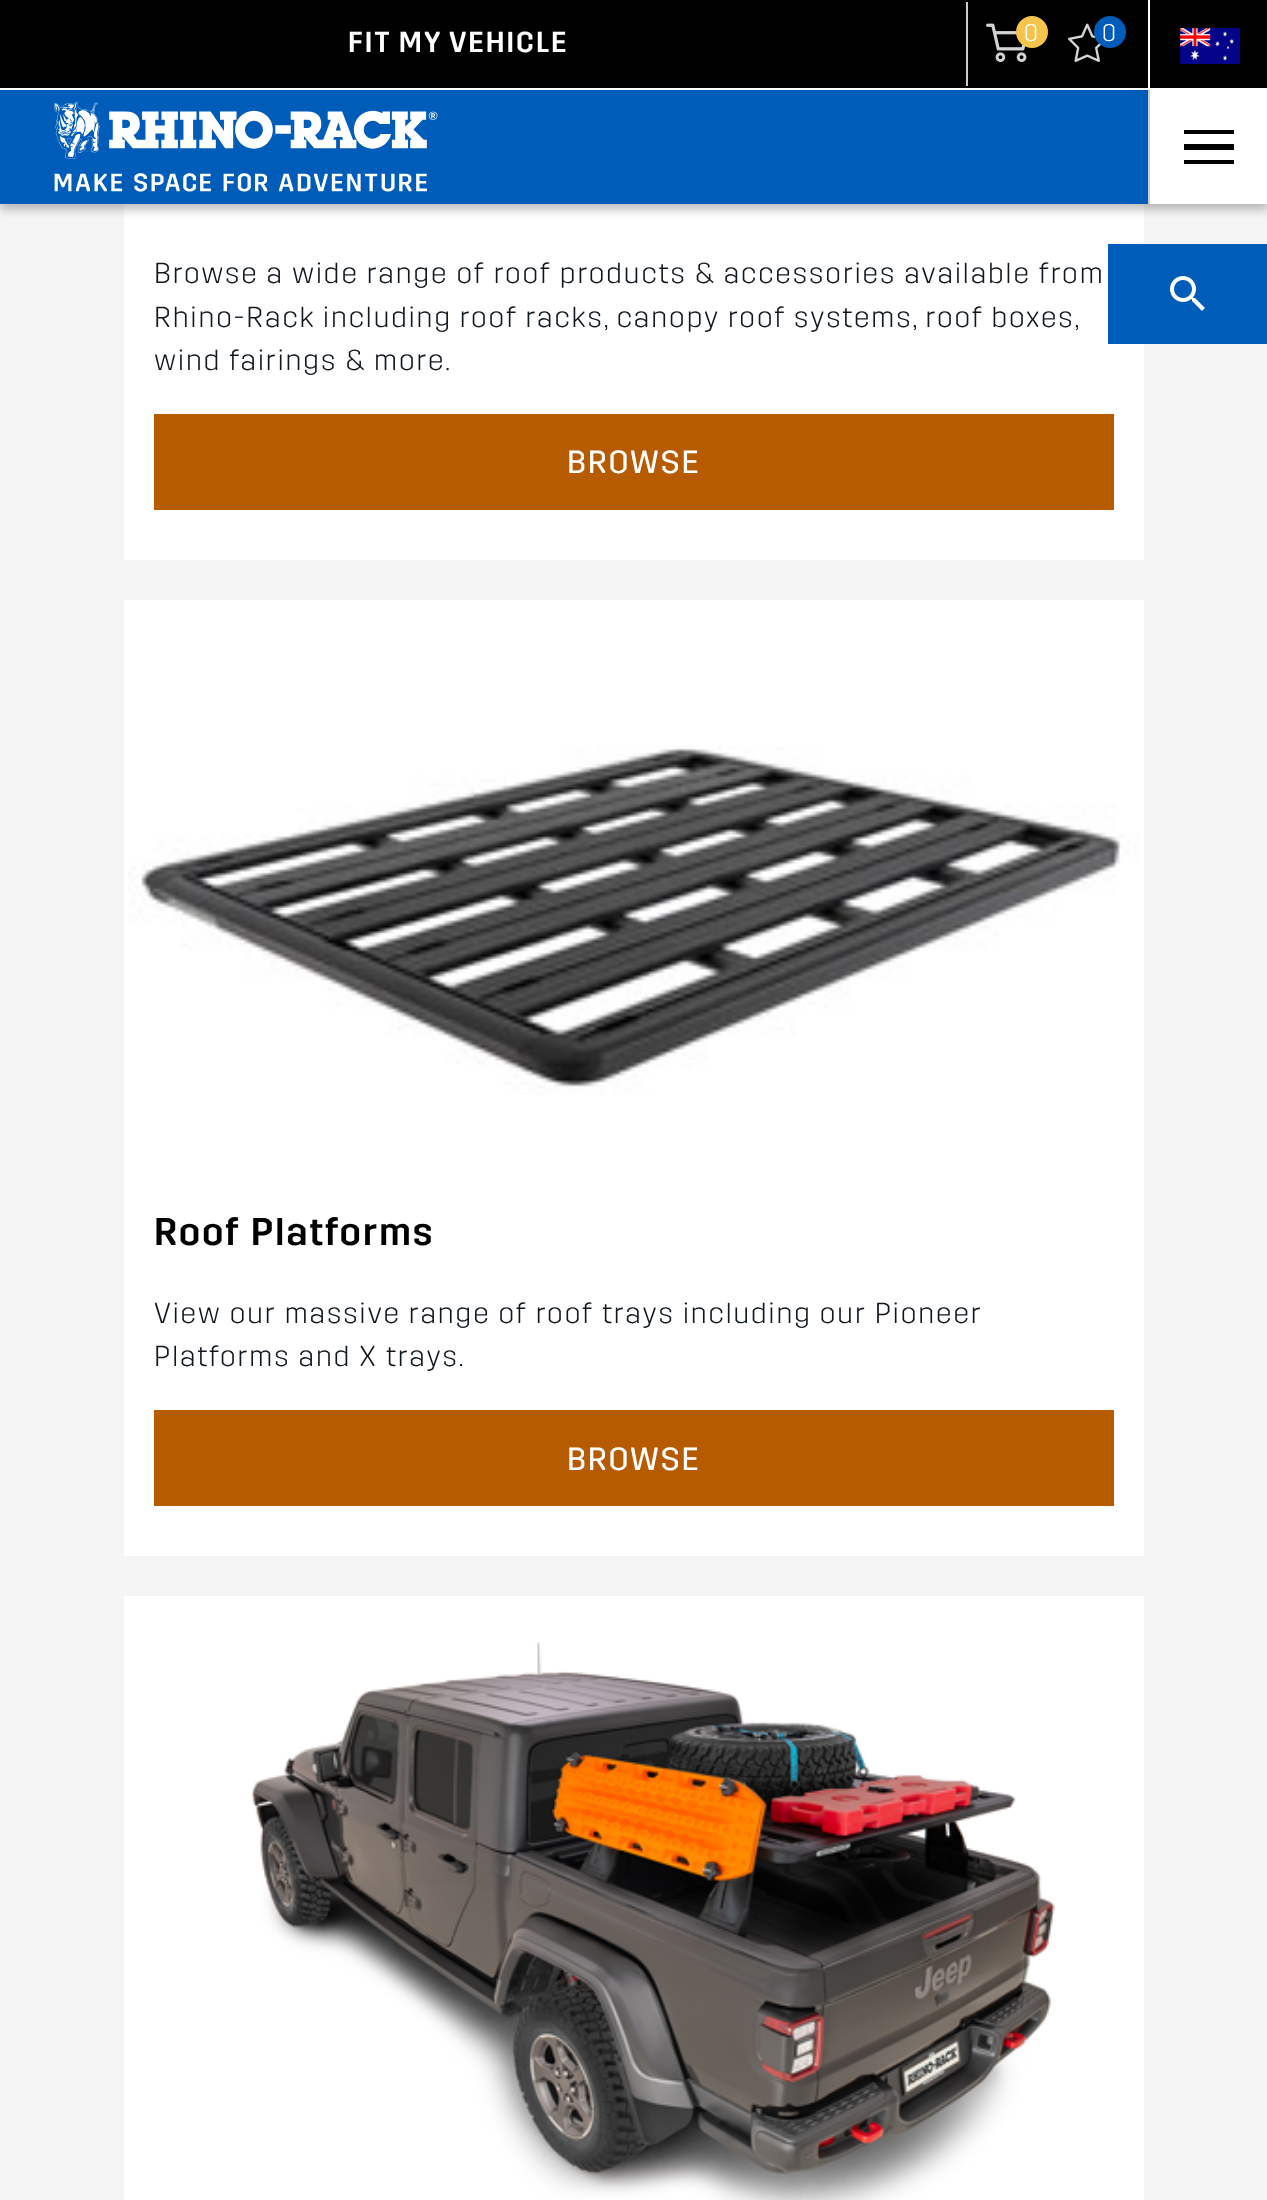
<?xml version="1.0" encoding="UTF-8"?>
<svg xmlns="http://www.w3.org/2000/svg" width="1267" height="2200">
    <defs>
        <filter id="blur1" x="-50%" y="-200%" width="200%" height="500%"><feGaussianBlur stdDeviation="5"/></filter>
    </defs>
    <rect width="100%" height="100%" fill="#F5F5F5"/>
    <rect x="124" y="204" width="1020" height="356" fill="#FFFFFF"/>
    <rect x="0" y="6" width="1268" height="204" fill="#000000" fill-opacity="0.25" filter="url(#blur1)"/>
    <rect x="0" y="0" width="1267" height="88" fill="#000000"/>
    <rect x="0" y="88" width="1267" height="2" fill="#FFFFFF"/>
    <text x="348" y="52" font-family="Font" font-size="28.8" font-weight="500" letter-spacing="2" fill="#FFFFFF">FIT MY VEHICLE</text>
    <rect x="966" y="2" width="2" height="84" fill="#CCCCCC"/>
    <image x="986" y="23" width="41" height="39" href="img_01.png"/>
    <circle cx="1032" cy="32" r="16" fill="#F4C44C"/>
    <text x="1024" y="41" font-family="Font" font-size="24" font-weight="300" letter-spacing="2" fill="#FFFFFF">0</text>
    <image x="1068" y="23" width="33" height="39" href="img_02.png"/>
    <circle cx="1110" cy="32" r="16" fill="#005CB9"/>
    <text x="1102" y="41" font-family="Font" font-size="24" font-weight="300" letter-spacing="2" fill="#FFFFFF">0</text>
    <rect x="1148" y="0" width="2" height="88" fill="#FFFFFF"/>
    <image x="1180" y="28" width="60" height="36" href="img_03.png"/>
    <rect x="1150" y="90" width="117" height="114" fill="#FFFFFF"/>
    <rect x="0" y="90" width="1148" height="114" fill="#005CB9"/>
    <image x="54" y="101" width="384" height="91" href="img_04.png"/>
    <rect x="1148" y="90" width="2" height="114" fill="#CCCCCC"/>
    <path d="M 1184 130 H 1234 V 134 H 1184 Z M 1184 144 H 1234 V 150 H 1184 Z M 1184 160 H 1234 V 164 H 1184 Z" fill="#000000"/>
    <rect x="1108" y="244" width="159" height="100" fill="#005CB9"/>
    <image x="1170" y="276" width="35" height="35" href="img_05.png"/>
    <text font-family="Font" font-size="28.8" font-weight="300" letter-spacing="2" fill="#10181F">
        <tspan x="154" y="283">Browse a wide range of roof products &amp; accessories available from</tspan>
        <tspan x="154" y="327" word-spacing="-0.25">Rhino-Rack including roof racks, canopy roof systems, roof boxes,</tspan>
        <tspan x="154" y="370">wind fairings &amp; more.</tspan>
    </text>
    <rect x="155" y="415" width="958" height="94" fill="none" stroke="#B65B00" stroke-width="2"/>
    <rect x="156" y="416" width="956" height="92" fill="#B65B00"/>
    <text x="567" y="473" font-family="Font" font-size="32" letter-spacing="2" fill="#FFFFFF">BROWSE</text>
    <rect x="124" y="600" width="1020" height="956" fill="#FFFFFF"/>
    <image x="128" y="746" width="1012" height="349" href="img_06.png"/>
    <text x="154" y="1245" font-family="Font" font-size="38.5" font-weight="500" letter-spacing="2" fill="#000000">Roof Platforms</text>
    <text font-family="Font" font-size="28.8" font-weight="300" letter-spacing="2" fill="#10181F">
        <tspan x="154" y="1323">View our massive range of roof trays including our Pioneer</tspan>
        <tspan x="154" y="1366">Platforms and X trays.</tspan>
    </text>
    <rect x="155" y="1411" width="958" height="94" fill="none" stroke="#B65B00" stroke-width="2"/>
    <rect x="156" y="1412" width="956" height="92" fill="#B65B00"/>
    <text x="567" y="1470" font-family="Font" font-size="32" letter-spacing="2" fill="#FFFFFF">BROWSE</text>
    <rect x="124" y="1596" width="1020" height="604" fill="#FFFFFF"/>
    <image x="251" y="1642" width="804" height="558" href="img_07.png"/>
</svg>
